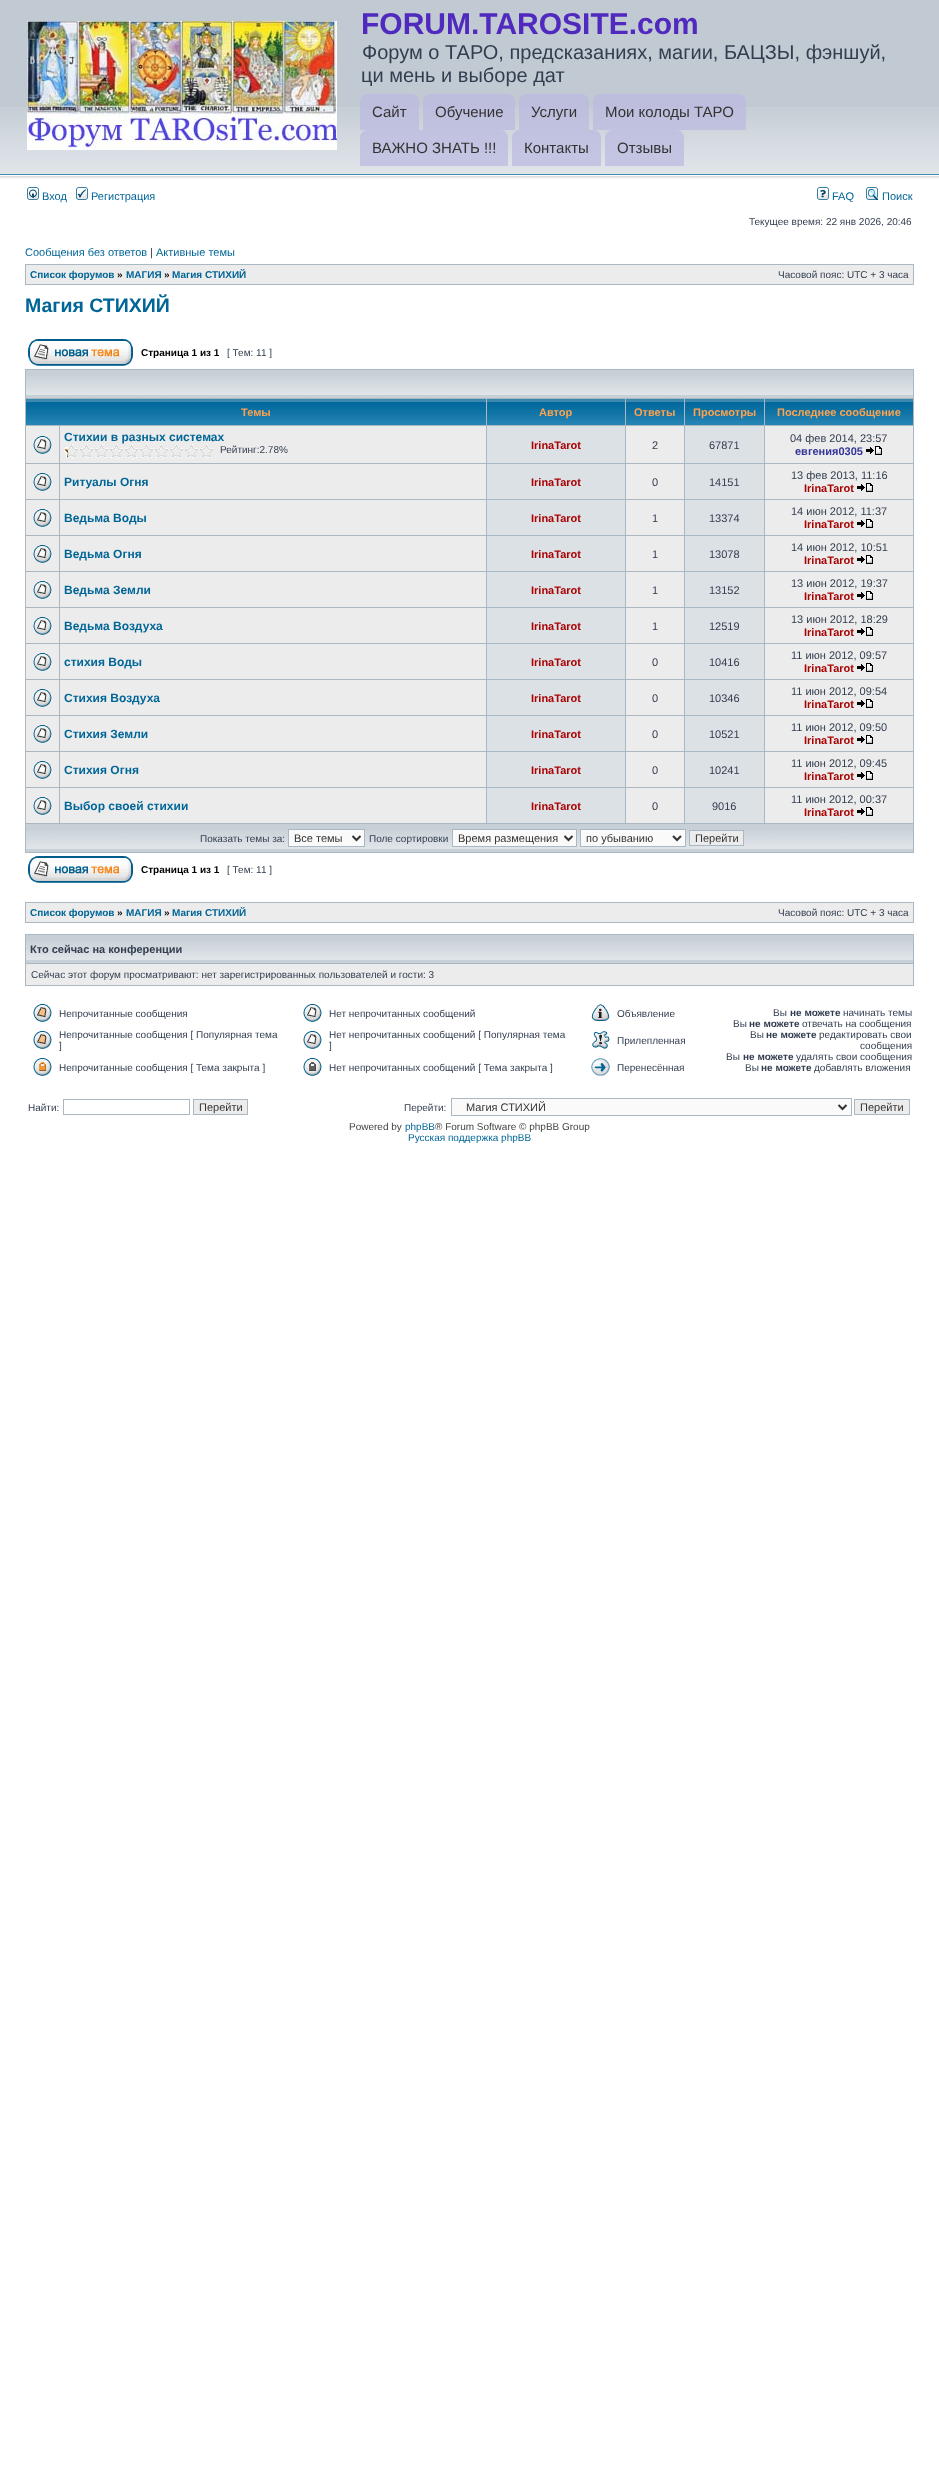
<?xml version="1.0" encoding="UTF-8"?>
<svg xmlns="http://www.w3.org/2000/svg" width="939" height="2473">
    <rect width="100%" height="100%" fill="#FFFFFF"/>
    <rect x="0" y="0" width="939" height="107" fill="#C1CAD2"/>
    <image x="0" y="107" width="939" height="78" href="img_01.png"/>
    <image x="27" y="21" width="310" height="129" href="img_02.png"/>
    <text x="361" y="34" font-family="Liberation Sans" font-size="30" font-weight="700" fill="#502ABE">FORUM.TAROSITE.com</text>
    <text x="362" y="59" font-family="Liberation Sans" font-size="20" fill="#323D4F">Форум о ТАРО, предсказаниях, магии, БАЦЗЫ, фэншуй,</text>
    <text x="361" y="82" font-family="Liberation Sans" font-size="20" fill="#323D4F">ци мень и выборе дат</text>
    <path d="M 368 94 H 411 C 415.5 94 419 97.5 419 102 V 130 H 360 V 102 C 360 97.5 363.5 94 368 94 Z" fill="#BAB9E1" fill-opacity="0.7"/>
    <text x="372" y="117" font-family="Liberation Sans" font-size="15" fill="#333333">Сайт</text>
    <path d="M 431 94 H 507 C 511.5 94 515 97.5 515 102 V 130 H 423 V 102 C 423 97.5 426.5 94 431 94 Z" fill="#BAB9E1" fill-opacity="0.7"/>
    <text x="435" y="117" font-family="Liberation Sans" font-size="15" fill="#333333">Обучение</text>
    <path d="M 527 94 H 581 C 585.5 94 589 97.5 589 102 V 130 H 519 V 102 C 519 97.5 522.5 94 527 94 Z" fill="#BAB9E1" fill-opacity="0.7"/>
    <text x="531" y="117" font-family="Liberation Sans" font-size="15" fill="#333333">Услуги</text>
    <path d="M 601 94 H 738 C 742.5 94 746 97.5 746 102 V 130 H 593 V 102 C 593 97.5 596.5 94 601 94 Z" fill="#BAB9E1" fill-opacity="0.7"/>
    <text x="605" y="117" font-family="Liberation Sans" font-size="15" fill="#333333">Мои колоды ТАРО</text>
    <path d="M 368 130 H 500 C 504.5 130 508 133.5 508 138 V 166 H 360 V 138 C 360 133.5 363.5 130 368 130 Z" fill="#BAB9E1" fill-opacity="0.7"/>
    <text x="372" y="153" font-family="Liberation Sans" font-size="15" fill="#333333">ВАЖНО ЗНАТЬ !!!</text>
    <path d="M 520 130 H 593 C 597.5 130 601 133.5 601 138 V 166 H 512 V 138 C 512 133.5 515.5 130 520 130 Z" fill="#BAB9E1" fill-opacity="0.7"/>
    <text x="524" y="153" font-family="Liberation Sans" font-size="15" fill="#333333">Контакты</text>
    <path d="M 613 130 H 676 C 680.5 130 684 133.5 684 138 V 166 H 605 V 138 C 605 133.5 608.5 130 613 130 Z" fill="#BAB9E1" fill-opacity="0.7"/>
    <text x="617" y="153" font-family="Liberation Sans" font-size="15" fill="#333333">Отзывы</text>
    <image x="27" y="187" width="12" height="13" href="img_03.png"/>
    <text x="42" y="200" font-family="Liberation Sans" font-size="11" fill="#006597">Вход</text>
    <image x="76" y="187" width="12" height="13" href="img_04.png"/>
    <text x="91" y="200" font-family="Liberation Sans" font-size="11" fill="#006597">Регистрация</text>
    <image x="817" y="187" width="12" height="13" href="img_05.png"/>
    <text x="832" y="200" font-family="Liberation Sans" font-size="11" fill="#006597">FAQ</text>
    <image x="866" y="187" width="12" height="13" href="img_06.png"/>
    <text x="882" y="200" font-family="Liberation Sans" font-size="11" fill="#006597">Поиск</text>
    <text x="749" y="225" font-family="Liberation Sans" font-size="10" fill="#323D4F">Текущее время: 22 янв 2026, 20:46</text>
    <text x="25" y="256" font-family="Liberation Sans" font-size="11" fill="#006597">Сообщения без ответов</text>
    <text x="150" y="256" font-family="Liberation Sans" font-size="11" fill="#323D4F">|</text>
    <text x="156" y="256" font-family="Liberation Sans" font-size="11" fill="#006597">Активные темы</text>
    <rect x="25" y="264" width="889" height="21" fill="#A9B8C2"/>
    <rect x="26" y="265" width="887" height="19" fill="#ECECEC"/>
    <text x="30" y="278" font-family="Liberation Sans" font-size="10" font-weight="700" fill="#006597">Список форумов</text>
    <text x="117" y="278" font-family="Liberation Sans" font-size="10" font-weight="700" fill="#000000">»</text>
    <text x="126" y="278" font-family="Liberation Sans" font-size="10" font-weight="700" fill="#006597">МАГИЯ</text>
    <text x="164" y="278" font-family="Liberation Sans" font-size="10" font-weight="700" fill="#000000">»</text>
    <text x="172" y="278" font-family="Liberation Sans" font-size="10" font-weight="700" fill="#006597">Магия СТИХИЙ</text>
    <text x="778" y="278" font-family="Liberation Sans" font-size="10" fill="#323D4F">Часовой пояс: UTC + 3 часа</text>
    <text x="25" y="312" font-family="Liberation Sans" font-size="19.5" font-weight="700" fill="#006597">Магия СТИХИЙ</text>
    <image x="28" y="339" width="105" height="27" href="img_07.png"/>
    <text x="141" y="356" font-family="Liberation Sans" font-size="10" font-weight="700" fill="#000000">Страница 1 из 1</text>
    <text x="227" y="356" font-family="Liberation Sans" font-size="10" fill="#323D4F">[ Тем: 11 ]</text>
    <rect x="25" y="369" width="889" height="484" fill="#A9B8C2"/>
    <rect x="26" y="370" width="887" height="28" fill="#C7D0D7"/>
    <image x="26" y="376" width="887" height="19" href="img_08.png"/>
    <image x="26" y="399" width="460" height="26" href="img_09.png"/>
    <text x="241" y="416" font-family="Liberation Sans" font-size="11" font-weight="700" fill="#FFA34F">Темы</text>
    <image x="487" y="399" width="138" height="26" href="img_10.png"/>
    <text x="539" y="416" font-family="Liberation Sans" font-size="11" font-weight="700" fill="#FFA34F">Автор</text>
    <image x="626" y="399" width="58" height="26" href="img_11.png"/>
    <text x="634" y="416" font-family="Liberation Sans" font-size="11" font-weight="700" fill="#FFA34F">Ответы</text>
    <image x="685" y="399" width="79" height="26" href="img_12.png"/>
    <text x="693" y="416" font-family="Liberation Sans" font-size="11" font-weight="700" fill="#FFA34F">Просмотры</text>
    <image x="765" y="399" width="148" height="26" href="img_13.png"/>
    <text x="777" y="416" font-family="Liberation Sans" font-size="11" font-weight="700" fill="#FFA34F">Последнее сообщение</text>
    <rect x="26" y="426" width="33" height="37" fill="#ECECEC"/>
    <image x="33" y="436" width="19" height="18" href="img_14.png"/>
    <rect x="60" y="426" width="426" height="37" fill="#ECECEC"/>
    <text x="64" y="441" font-family="Liberation Sans" font-size="12" font-weight="700" fill="#006597">Стихии в разных системах</text>
    <image x="68" y="444" width="145" height="15" href="img_15.png"/>
    <image x="64" y="447" width="4" height="11" href="img_16.png"/>
    <text x="220" y="453" font-family="Liberation Sans" font-size="10" fill="#323D4F">Рейтинг:2.78%</text>
    <rect x="487" y="426" width="138" height="37" fill="#DCE1E5"/>
    <text x="531" y="449" font-family="Liberation Sans" font-size="11" font-weight="700" fill="#AA0000">IrinaTarot</text>
    <rect x="626" y="426" width="58" height="37" fill="#ECECEC"/>
    <text x="652" y="449" font-family="Liberation Sans" font-size="11" fill="#323D4F">2</text>
    <rect x="685" y="426" width="79" height="37" fill="#DCE1E5"/>
    <text x="709" y="449" font-family="Liberation Sans" font-size="11" fill="#323D4F">67871</text>
    <rect x="765" y="426" width="148" height="37" fill="#ECECEC"/>
    <text x="790" y="442" font-family="Liberation Sans" font-size="11" fill="#323D4F">04 фев 2014, 23:57</text>
    <text x="795" y="455" font-family="Liberation Sans" font-size="11" font-weight="700" fill="#333399">евгения0305</text>
    <image x="866" y="446" width="16" height="9" href="img_17.png"/>
    <rect x="26" y="464" width="33" height="35" fill="#ECECEC"/>
    <image x="33" y="473" width="19" height="18" href="img_14.png"/>
    <rect x="60" y="464" width="426" height="35" fill="#ECECEC"/>
    <text x="64" y="486" font-family="Liberation Sans" font-size="12" font-weight="700" fill="#006597">Ритуалы Огня</text>
    <rect x="487" y="464" width="138" height="35" fill="#DCE1E5"/>
    <text x="531" y="486" font-family="Liberation Sans" font-size="11" font-weight="700" fill="#AA0000">IrinaTarot</text>
    <rect x="626" y="464" width="58" height="35" fill="#ECECEC"/>
    <text x="652" y="486" font-family="Liberation Sans" font-size="11" fill="#323D4F">0</text>
    <rect x="685" y="464" width="79" height="35" fill="#DCE1E5"/>
    <text x="709" y="486" font-family="Liberation Sans" font-size="11" fill="#323D4F">14151</text>
    <rect x="765" y="464" width="148" height="35" fill="#ECECEC"/>
    <text x="791" y="479" font-family="Liberation Sans" font-size="11" fill="#323D4F">13 фев 2013, 11:16</text>
    <text x="804" y="492" font-family="Liberation Sans" font-size="11" font-weight="700" fill="#AA0000">IrinaTarot</text>
    <image x="857" y="483" width="16" height="9" href="img_17.png"/>
    <rect x="26" y="500" width="33" height="35" fill="#ECECEC"/>
    <image x="33" y="509" width="19" height="18" href="img_14.png"/>
    <rect x="60" y="500" width="426" height="35" fill="#ECECEC"/>
    <text x="64" y="522" font-family="Liberation Sans" font-size="12" font-weight="700" fill="#006597">Ведьма Воды</text>
    <rect x="487" y="500" width="138" height="35" fill="#DCE1E5"/>
    <text x="531" y="522" font-family="Liberation Sans" font-size="11" font-weight="700" fill="#AA0000">IrinaTarot</text>
    <rect x="626" y="500" width="58" height="35" fill="#ECECEC"/>
    <text x="652" y="522" font-family="Liberation Sans" font-size="11" fill="#323D4F">1</text>
    <rect x="685" y="500" width="79" height="35" fill="#DCE1E5"/>
    <text x="709" y="522" font-family="Liberation Sans" font-size="11" fill="#323D4F">13374</text>
    <rect x="765" y="500" width="148" height="35" fill="#ECECEC"/>
    <text x="791" y="515" font-family="Liberation Sans" font-size="11" fill="#323D4F">14 июн 2012, 11:37</text>
    <text x="804" y="528" font-family="Liberation Sans" font-size="11" font-weight="700" fill="#AA0000">IrinaTarot</text>
    <image x="857" y="519" width="16" height="9" href="img_17.png"/>
    <rect x="26" y="536" width="33" height="35" fill="#ECECEC"/>
    <image x="33" y="545" width="19" height="18" href="img_14.png"/>
    <rect x="60" y="536" width="426" height="35" fill="#ECECEC"/>
    <text x="64" y="558" font-family="Liberation Sans" font-size="12" font-weight="700" fill="#006597">Ведьма Огня</text>
    <rect x="487" y="536" width="138" height="35" fill="#DCE1E5"/>
    <text x="531" y="558" font-family="Liberation Sans" font-size="11" font-weight="700" fill="#AA0000">IrinaTarot</text>
    <rect x="626" y="536" width="58" height="35" fill="#ECECEC"/>
    <text x="652" y="558" font-family="Liberation Sans" font-size="11" fill="#323D4F">1</text>
    <rect x="685" y="536" width="79" height="35" fill="#DCE1E5"/>
    <text x="709" y="558" font-family="Liberation Sans" font-size="11" fill="#323D4F">13078</text>
    <rect x="765" y="536" width="148" height="35" fill="#ECECEC"/>
    <text x="791" y="551" font-family="Liberation Sans" font-size="11" fill="#323D4F">14 июн 2012, 10:51</text>
    <text x="804" y="564" font-family="Liberation Sans" font-size="11" font-weight="700" fill="#AA0000">IrinaTarot</text>
    <image x="857" y="555" width="16" height="9" href="img_17.png"/>
    <rect x="26" y="572" width="33" height="35" fill="#ECECEC"/>
    <image x="33" y="581" width="19" height="18" href="img_14.png"/>
    <rect x="60" y="572" width="426" height="35" fill="#ECECEC"/>
    <text x="64" y="594" font-family="Liberation Sans" font-size="12" font-weight="700" fill="#006597">Ведьма Земли</text>
    <rect x="487" y="572" width="138" height="35" fill="#DCE1E5"/>
    <text x="531" y="594" font-family="Liberation Sans" font-size="11" font-weight="700" fill="#AA0000">IrinaTarot</text>
    <rect x="626" y="572" width="58" height="35" fill="#ECECEC"/>
    <text x="652" y="594" font-family="Liberation Sans" font-size="11" fill="#323D4F">1</text>
    <rect x="685" y="572" width="79" height="35" fill="#DCE1E5"/>
    <text x="709" y="594" font-family="Liberation Sans" font-size="11" fill="#323D4F">13152</text>
    <rect x="765" y="572" width="148" height="35" fill="#ECECEC"/>
    <text x="791" y="587" font-family="Liberation Sans" font-size="11" fill="#323D4F">13 июн 2012, 19:37</text>
    <text x="804" y="600" font-family="Liberation Sans" font-size="11" font-weight="700" fill="#AA0000">IrinaTarot</text>
    <image x="857" y="591" width="16" height="9" href="img_17.png"/>
    <rect x="26" y="608" width="33" height="35" fill="#ECECEC"/>
    <image x="33" y="617" width="19" height="18" href="img_14.png"/>
    <rect x="60" y="608" width="426" height="35" fill="#ECECEC"/>
    <text x="64" y="630" font-family="Liberation Sans" font-size="12" font-weight="700" fill="#006597">Ведьма Воздуха</text>
    <rect x="487" y="608" width="138" height="35" fill="#DCE1E5"/>
    <text x="531" y="630" font-family="Liberation Sans" font-size="11" font-weight="700" fill="#AA0000">IrinaTarot</text>
    <rect x="626" y="608" width="58" height="35" fill="#ECECEC"/>
    <text x="652" y="630" font-family="Liberation Sans" font-size="11" fill="#323D4F">1</text>
    <rect x="685" y="608" width="79" height="35" fill="#DCE1E5"/>
    <text x="709" y="630" font-family="Liberation Sans" font-size="11" fill="#323D4F">12519</text>
    <rect x="765" y="608" width="148" height="35" fill="#ECECEC"/>
    <text x="791" y="623" font-family="Liberation Sans" font-size="11" fill="#323D4F">13 июн 2012, 18:29</text>
    <text x="804" y="636" font-family="Liberation Sans" font-size="11" font-weight="700" fill="#AA0000">IrinaTarot</text>
    <image x="857" y="627" width="16" height="9" href="img_17.png"/>
    <rect x="26" y="644" width="33" height="35" fill="#ECECEC"/>
    <image x="33" y="653" width="19" height="18" href="img_14.png"/>
    <rect x="60" y="644" width="426" height="35" fill="#ECECEC"/>
    <text x="64" y="666" font-family="Liberation Sans" font-size="12" font-weight="700" fill="#006597">стихия Воды</text>
    <rect x="487" y="644" width="138" height="35" fill="#DCE1E5"/>
    <text x="531" y="666" font-family="Liberation Sans" font-size="11" font-weight="700" fill="#AA0000">IrinaTarot</text>
    <rect x="626" y="644" width="58" height="35" fill="#ECECEC"/>
    <text x="652" y="666" font-family="Liberation Sans" font-size="11" fill="#323D4F">0</text>
    <rect x="685" y="644" width="79" height="35" fill="#DCE1E5"/>
    <text x="709" y="666" font-family="Liberation Sans" font-size="11" fill="#323D4F">10416</text>
    <rect x="765" y="644" width="148" height="35" fill="#ECECEC"/>
    <text x="791" y="659" font-family="Liberation Sans" font-size="11" fill="#323D4F">11 июн 2012, 09:57</text>
    <text x="804" y="672" font-family="Liberation Sans" font-size="11" font-weight="700" fill="#AA0000">IrinaTarot</text>
    <image x="857" y="663" width="16" height="9" href="img_17.png"/>
    <rect x="26" y="680" width="33" height="35" fill="#ECECEC"/>
    <image x="33" y="689" width="19" height="18" href="img_14.png"/>
    <rect x="60" y="680" width="426" height="35" fill="#ECECEC"/>
    <text x="64" y="702" font-family="Liberation Sans" font-size="12" font-weight="700" fill="#006597">Стихия Воздуха</text>
    <rect x="487" y="680" width="138" height="35" fill="#DCE1E5"/>
    <text x="531" y="702" font-family="Liberation Sans" font-size="11" font-weight="700" fill="#AA0000">IrinaTarot</text>
    <rect x="626" y="680" width="58" height="35" fill="#ECECEC"/>
    <text x="652" y="702" font-family="Liberation Sans" font-size="11" fill="#323D4F">0</text>
    <rect x="685" y="680" width="79" height="35" fill="#DCE1E5"/>
    <text x="709" y="702" font-family="Liberation Sans" font-size="11" fill="#323D4F">10346</text>
    <rect x="765" y="680" width="148" height="35" fill="#ECECEC"/>
    <text x="791" y="695" font-family="Liberation Sans" font-size="11" fill="#323D4F">11 июн 2012, 09:54</text>
    <text x="804" y="708" font-family="Liberation Sans" font-size="11" font-weight="700" fill="#AA0000">IrinaTarot</text>
    <image x="857" y="699" width="16" height="9" href="img_17.png"/>
    <rect x="26" y="716" width="33" height="35" fill="#ECECEC"/>
    <image x="33" y="725" width="19" height="18" href="img_14.png"/>
    <rect x="60" y="716" width="426" height="35" fill="#ECECEC"/>
    <text x="64" y="738" font-family="Liberation Sans" font-size="12" font-weight="700" fill="#006597">Стихия Земли</text>
    <rect x="487" y="716" width="138" height="35" fill="#DCE1E5"/>
    <text x="531" y="738" font-family="Liberation Sans" font-size="11" font-weight="700" fill="#AA0000">IrinaTarot</text>
    <rect x="626" y="716" width="58" height="35" fill="#ECECEC"/>
    <text x="652" y="738" font-family="Liberation Sans" font-size="11" fill="#323D4F">0</text>
    <rect x="685" y="716" width="79" height="35" fill="#DCE1E5"/>
    <text x="709" y="738" font-family="Liberation Sans" font-size="11" fill="#323D4F">10521</text>
    <rect x="765" y="716" width="148" height="35" fill="#ECECEC"/>
    <text x="791" y="731" font-family="Liberation Sans" font-size="11" fill="#323D4F">11 июн 2012, 09:50</text>
    <text x="804" y="744" font-family="Liberation Sans" font-size="11" font-weight="700" fill="#AA0000">IrinaTarot</text>
    <image x="857" y="735" width="16" height="9" href="img_17.png"/>
    <rect x="26" y="752" width="33" height="35" fill="#ECECEC"/>
    <image x="33" y="761" width="19" height="18" href="img_14.png"/>
    <rect x="60" y="752" width="426" height="35" fill="#ECECEC"/>
    <text x="64" y="774" font-family="Liberation Sans" font-size="12" font-weight="700" fill="#006597">Стихия Огня</text>
    <rect x="487" y="752" width="138" height="35" fill="#DCE1E5"/>
    <text x="531" y="774" font-family="Liberation Sans" font-size="11" font-weight="700" fill="#AA0000">IrinaTarot</text>
    <rect x="626" y="752" width="58" height="35" fill="#ECECEC"/>
    <text x="652" y="774" font-family="Liberation Sans" font-size="11" fill="#323D4F">0</text>
    <rect x="685" y="752" width="79" height="35" fill="#DCE1E5"/>
    <text x="709" y="774" font-family="Liberation Sans" font-size="11" fill="#323D4F">10241</text>
    <rect x="765" y="752" width="148" height="35" fill="#ECECEC"/>
    <text x="791" y="767" font-family="Liberation Sans" font-size="11" fill="#323D4F">11 июн 2012, 09:45</text>
    <text x="804" y="780" font-family="Liberation Sans" font-size="11" font-weight="700" fill="#AA0000">IrinaTarot</text>
    <image x="857" y="771" width="16" height="9" href="img_17.png"/>
    <rect x="26" y="788" width="33" height="35" fill="#ECECEC"/>
    <image x="33" y="797" width="19" height="18" href="img_14.png"/>
    <rect x="60" y="788" width="426" height="35" fill="#ECECEC"/>
    <text x="64" y="810" font-family="Liberation Sans" font-size="12" font-weight="700" fill="#006597">Выбор своей стихии</text>
    <rect x="487" y="788" width="138" height="35" fill="#DCE1E5"/>
    <text x="531" y="810" font-family="Liberation Sans" font-size="11" font-weight="700" fill="#AA0000">IrinaTarot</text>
    <rect x="626" y="788" width="58" height="35" fill="#ECECEC"/>
    <text x="652" y="810" font-family="Liberation Sans" font-size="11" fill="#323D4F">0</text>
    <rect x="685" y="788" width="79" height="35" fill="#DCE1E5"/>
    <text x="712" y="810" font-family="Liberation Sans" font-size="11" fill="#323D4F">9016</text>
    <rect x="765" y="788" width="148" height="35" fill="#ECECEC"/>
    <text x="791" y="803" font-family="Liberation Sans" font-size="11" fill="#323D4F">11 июн 2012, 00:37</text>
    <text x="804" y="816" font-family="Liberation Sans" font-size="11" font-weight="700" fill="#AA0000">IrinaTarot</text>
    <image x="857" y="807" width="16" height="9" href="img_17.png"/>
    <rect x="26" y="824" width="887" height="28" fill="#C7D0D7"/>
    <image x="26" y="830" width="887" height="19" href="img_08.png"/>
    <text x="200" y="842" font-family="Liberation Sans" font-size="10" fill="#323D4F">Показать темы за:</text>
    <rect x="288.5" y="829.5" width="76" height="17" fill="#FAFAFA" stroke="#A9B8C2"/>
    <path d="M 352.5 836 L 356.5 840 L 360.5 836" fill="none" stroke="#333333" stroke-width="2"/>
    <text x="294" y="842" font-family="Liberation Sans" font-size="11" fill="#333333">Все темы</text>
    <text x="369" y="842" font-family="Liberation Sans" font-size="10" fill="#323D4F">Поле сортировки</text>
    <rect x="452.5" y="829.5" width="124" height="17" fill="#FAFAFA" stroke="#A9B8C2"/>
    <path d="M 564.5 836 L 568.5 840 L 572.5 836" fill="none" stroke="#333333" stroke-width="2"/>
    <text x="458" y="842" font-family="Liberation Sans" font-size="11" fill="#333333">Время размещения</text>
    <rect x="580.5" y="829.5" width="105" height="17" fill="#FAFAFA" stroke="#A9B8C2"/>
    <path d="M 673 836 L 677 840 L 681 836" fill="none" stroke="#333333" stroke-width="2"/>
    <text x="586" y="842" font-family="Liberation Sans" font-size="11" fill="#333333">по убыванию</text>
    <rect x="689.5" y="830.5" width="54" height="15" fill="#ECECEC" stroke="#A9B8C2"/>
    <text x="695" y="842" font-family="Liberation Sans" font-size="11" fill="#333333">Перейти</text>
    <image x="28" y="856" width="105" height="27" href="img_07.png"/>
    <text x="141" y="873" font-family="Liberation Sans" font-size="10" font-weight="700" fill="#000000">Страница 1 из 1</text>
    <text x="227" y="873" font-family="Liberation Sans" font-size="10" fill="#323D4F">[ Тем: 11 ]</text>
    <rect x="25" y="902" width="889" height="21" fill="#A9B8C2"/>
    <rect x="26" y="903" width="887" height="19" fill="#ECECEC"/>
    <text x="30" y="916" font-family="Liberation Sans" font-size="10" font-weight="700" fill="#006597">Список форумов</text>
    <text x="117" y="916" font-family="Liberation Sans" font-size="10" font-weight="700" fill="#000000">»</text>
    <text x="126" y="916" font-family="Liberation Sans" font-size="10" font-weight="700" fill="#006597">МАГИЯ</text>
    <text x="164" y="916" font-family="Liberation Sans" font-size="10" font-weight="700" fill="#000000">»</text>
    <text x="172" y="916" font-family="Liberation Sans" font-size="10" font-weight="700" fill="#006597">Магия СТИХИЙ</text>
    <text x="778" y="916" font-family="Liberation Sans" font-size="10" fill="#323D4F">Часовой пояс: UTC + 3 часа</text>
    <rect x="25" y="934" width="889" height="52" fill="#A9B8C2"/>
    <rect x="26" y="935" width="887" height="28" fill="#C7D0D7"/>
    <image x="26" y="941" width="887" height="19" href="img_08.png"/>
    <text x="30" y="953" font-family="Liberation Sans" font-size="11" font-weight="700" fill="#323D4F">Кто сейчас на конференции</text>
    <rect x="26" y="964" width="887" height="21" fill="#ECECEC"/>
    <text x="31" y="978" font-family="Liberation Sans" font-size="10" fill="#323D4F">Сейчас этот форум просматривают: нет зарегистрированных пользователей и гости: 3</text>
    <image x="33" y="1004" width="19" height="18" href="img_18.png"/>
    <text x="59" y="1017" font-family="Liberation Sans" font-size="10" fill="#323D4F">Непрочитанные сообщения</text>
    <image x="303" y="1004" width="19" height="18" href="img_19.png"/>
    <text x="329" y="1017" font-family="Liberation Sans" font-size="10" fill="#323D4F">Нет непрочитанных сообщений</text>
    <image x="591" y="1004" width="19" height="17" href="img_20.png"/>
    <text x="617" y="1017" font-family="Liberation Sans" font-size="10" fill="#323D4F">Объявление</text>
    <image x="33" y="1031" width="19" height="18" href="img_21.png"/>
    <text font-family="Liberation Sans" font-size="10" fill="#323D4F">
        <tspan x="59" y="1038">Непрочитанные сообщения [ Популярная тема</tspan>
        <tspan x="59" y="1049">]</tspan>
    </text>
    <image x="303" y="1031" width="19" height="18" href="img_22.png"/>
    <text font-family="Liberation Sans" font-size="10" fill="#323D4F">
        <tspan x="329" y="1038">Нет непрочитанных сообщений [ Популярная тема</tspan>
        <tspan x="329" y="1049">]</tspan>
    </text>
    <image x="592" y="1031" width="18" height="18" href="img_23.png"/>
    <text x="617" y="1044" font-family="Liberation Sans" font-size="10" fill="#323D4F">Прилепленная</text>
    <image x="33" y="1058" width="19" height="18" href="img_24.png"/>
    <text x="59" y="1071" font-family="Liberation Sans" font-size="10" fill="#323D4F">Непрочитанные сообщения [ Тема закрыта ]</text>
    <image x="303" y="1058" width="19" height="18" href="img_25.png"/>
    <text x="329" y="1071" font-family="Liberation Sans" font-size="10" fill="#323D4F">Нет непрочитанных сообщений [ Тема закрыта ]</text>
    <image x="591" y="1058" width="19" height="18" href="img_26.png"/>
    <text x="617" y="1071" font-family="Liberation Sans" font-size="10" fill="#323D4F">Перенесённая</text>
    <text x="773" y="1016" font-family="Liberation Sans" font-size="10" fill="#323D4F">Вы</text>
    <text x="790" y="1016" font-family="Liberation Sans" font-size="10" font-weight="700" fill="#323D4F">не можете</text>
    <text x="843" y="1016" font-family="Liberation Sans" font-size="10" fill="#323D4F">начинать темы</text>
    <text x="733" y="1027" font-family="Liberation Sans" font-size="10" fill="#323D4F">Вы</text>
    <text x="749" y="1027" font-family="Liberation Sans" font-size="10" font-weight="700" fill="#323D4F">не можете</text>
    <text x="802" y="1027" font-family="Liberation Sans" font-size="10" fill="#323D4F">отвечать на сообщения</text>
    <text x="750" y="1038" font-family="Liberation Sans" font-size="10" fill="#323D4F">Вы</text>
    <text x="766" y="1038" font-family="Liberation Sans" font-size="10" font-weight="700" fill="#323D4F">не можете</text>
    <text x="819" y="1038" font-family="Liberation Sans" font-size="10" fill="#323D4F">редактировать свои</text>
    <text x="860" y="1049" font-family="Liberation Sans" font-size="10" fill="#323D4F">сообщения</text>
    <text x="726" y="1060" font-family="Liberation Sans" font-size="10" fill="#323D4F">Вы</text>
    <text x="743" y="1060" font-family="Liberation Sans" font-size="10" font-weight="700" fill="#323D4F">не можете</text>
    <text x="796" y="1060" font-family="Liberation Sans" font-size="10" fill="#323D4F">удалять свои сообщения</text>
    <text x="745" y="1071" font-family="Liberation Sans" font-size="10" fill="#323D4F">Вы</text>
    <text x="761" y="1071" font-family="Liberation Sans" font-size="10" font-weight="700" fill="#323D4F">не можете</text>
    <text x="814" y="1071" font-family="Liberation Sans" font-size="10" fill="#323D4F">добавлять вложения</text>
    <text x="28" y="1111" font-family="Liberation Sans" font-size="10" fill="#323D4F">Найти:</text>
    <rect x="63.5" y="1099.5" width="126" height="15" fill="none" stroke="#A9B8C2"/>
    <rect x="193.5" y="1099.5" width="54" height="15" fill="#ECECEC" stroke="#A9B8C2"/>
    <text x="199" y="1111" font-family="Liberation Sans" font-size="11" fill="#333333">Перейти</text>
    <text x="404" y="1111" font-family="Liberation Sans" font-size="10" fill="#323D4F">Перейти:</text>
    <rect x="451.5" y="1098.5" width="400" height="17" fill="#FAFAFA" stroke="#A9B8C2"/>
    <path d="M 838.5 1105 L 842.5 1109 L 846.5 1105" fill="none" stroke="#333333" stroke-width="2"/>
    <text x="466" y="1111" font-family="Liberation Sans" font-size="11" fill="#333333">Магия СТИХИЙ</text>
    <rect x="854.5" y="1099.5" width="55" height="15" fill="#ECECEC" stroke="#A9B8C2"/>
    <text x="860" y="1111" font-family="Liberation Sans" font-size="11" fill="#333333">Перейти</text>
    <text x="349" y="1130" font-family="Liberation Sans" font-size="10" fill="#444444">Powered by</text>
    <text x="405" y="1130" font-family="Liberation Sans" font-size="10" fill="#006597">phpBB</text>
    <text x="435" y="1130" font-family="Liberation Sans" font-size="10" fill="#444444">® Forum Software © phpBB Group</text>
    <text x="408" y="1141" font-family="Liberation Sans" font-size="10" fill="#006597">Русская поддержка phpBB</text>
</svg>
